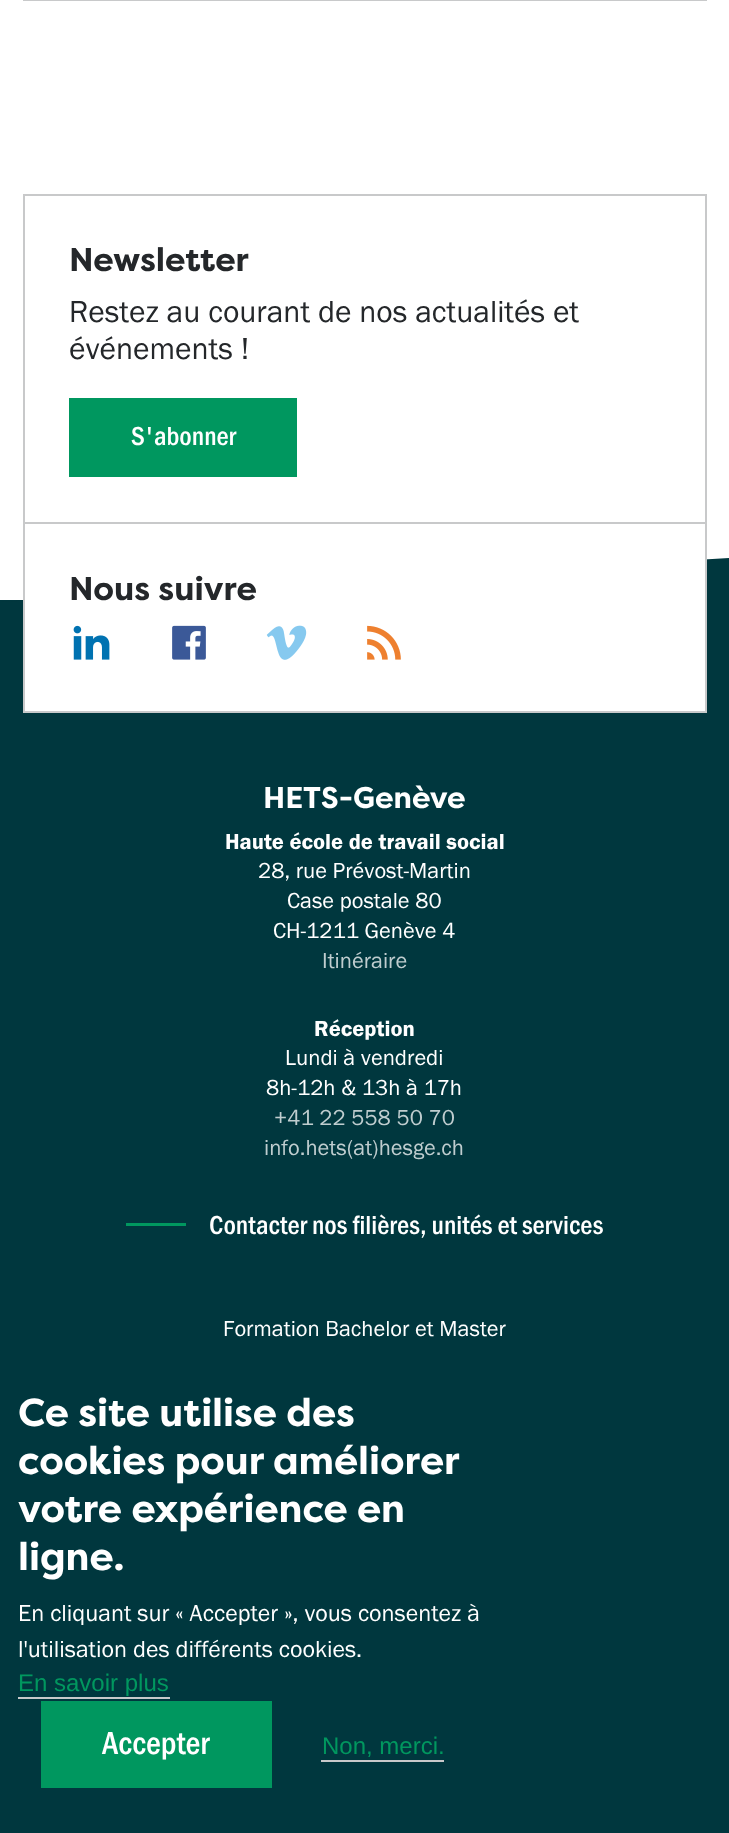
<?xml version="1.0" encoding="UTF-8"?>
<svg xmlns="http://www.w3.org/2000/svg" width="729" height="1833">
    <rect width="100%" height="100%" fill="#FFFFFF"/>
    <rect x="23" y="0" width="684" height="1" fill="#C8C9CA"/>
    <rect x="0" y="600" width="729" height="1233" fill="#00373E"/>
    <path d="M 729 558 V 602 H 0 Z" fill="#00373E"/>
    <rect x="25" y="559" width="680" height="152" fill="#FFFFFF"/>
    <rect x="24" y="195" width="682" height="517" fill="none" stroke="#C8C9CA" stroke-width="2"/>
    <rect x="24" y="522" width="681" height="2" fill="#C8C9CA"/>
    <text x="69" y="271" font-family="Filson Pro" font-size="33" font-weight="700" fill="#24272A">Newsletter</text>
    <text font-family="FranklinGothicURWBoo" font-size="31.5" fill="#24272A">
        <tspan x="69" y="322">Restez au courant de nos actualités et</tspan>
        <tspan x="69" y="359">événements !</tspan>
    </text>
    <rect x="69" y="398" width="228" height="79" fill="#00975F"/>
    <text x="131" y="445" font-family="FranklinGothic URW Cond" font-size="27" font-weight="500" fill="#FFFFFF">S'abonner</text>
    <text x="69" y="600" font-family="Filson Pro" font-size="33" font-weight="700" fill="#24272A">Nous suivre</text>
    <image x="73" y="625" width="37" height="35" href="img_01.png"/>
    <image x="172" y="625" width="34" height="35" href="img_02.png"/>
    <image x="266" y="625" width="41" height="35" href="img_03.png"/>
    <image x="367" y="625" width="34" height="35" href="img_04.png"/>
    <text x="263" y="808" font-family="Filson Pro" font-size="30" font-weight="700" fill="#FFFFFF">HETS-Genève</text>
    <text x="225" y="849" font-family="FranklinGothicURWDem" font-size="22.5" fill="#FFFFFF">Haute école de travail social</text>
    <text x="258" y="878" font-family="FranklinGothicURWBoo" font-size="22.5" fill="#FFFFFF">28, rue Prévost-Martin</text>
    <text x="287" y="908" font-family="FranklinGothicURWBoo" font-size="22.5" fill="#FFFFFF">Case postale 80</text>
    <text x="273" y="938" font-family="FranklinGothicURWBoo" font-size="22.5" fill="#FFFFFF">CH-1211 Genève 4</text>
    <text x="322" y="968" font-family="FranklinGothicURWBoo" font-size="22.5" fill="#BFCDCF">Itinéraire</text>
    <text x="314" y="1036" font-family="FranklinGothicURWDem" font-size="22.5" fill="#FFFFFF">Réception</text>
    <text x="285" y="1065" font-family="FranklinGothicURWBoo" font-size="22.5" fill="#FFFFFF">Lundi à vendredi</text>
    <text x="266" y="1095" font-family="FranklinGothicURWBoo" font-size="22.5" fill="#FFFFFF">8h-12h &amp; 13h à 17h</text>
    <text x="274" y="1125" font-family="FranklinGothicURWBoo" font-size="22.5" fill="#BFCDCF">+41 22 558 50 70</text>
    <text x="264" y="1155" font-family="FranklinGothicURWBoo" font-size="22.5" fill="#BFCDCF">info.hets(at)hesge.ch</text>
    <rect x="126" y="1223" width="60" height="3" fill="#00975F"/>
    <text x="209" y="1234" font-family="FranklinGothic URW Cond" font-size="27" font-weight="500" fill="#FFFFFF">Contacter nos filières, unités et services</text>
    <text x="223" y="1336" font-family="FranklinGothicURWBoo" font-size="22.5" fill="#FFFFFF">Formation Bachelor et Master</text>
    <text font-family="Filson Pro" font-size="39" font-weight="700" fill="#FFFFFF">
        <tspan x="18" y="1426">Ce site utilise des</tspan>
        <tspan x="18" y="1474">cookies pour améliorer</tspan>
        <tspan x="18" y="1522">votre expérience en</tspan>
        <tspan x="18" y="1570">ligne.</tspan>
    </text>
    <text font-family="FranklinGothicURWBoo" font-size="24" fill="#FFFFFF">
        <tspan x="18" y="1621">En cliquant sur « Accepter », vous consentez à</tspan>
        <tspan x="18" y="1657">l'utilisation des différents cookies.</tspan>
    </text>
    <rect x="18" y="1697" width="152" height="2" fill="#C8C9CA"/>
    <text x="18" y="1691" font-family="Liberation Sans" font-size="24" fill="#00975F">En savoir plus</text>
    <rect x="41" y="1701" width="231" height="87" fill="#00975F"/>
    <text x="102" y="1754" font-family="FranklinGothic URW Cond" font-size="33" font-weight="500" fill="#FFFFFF">Accepter</text>
    <rect x="321" y="1760" width="123" height="2" fill="#C8C9CA"/>
    <text x="322" y="1754" font-family="Liberation Sans" font-size="24" fill="#00975F">Non, merci.</text>
</svg>
